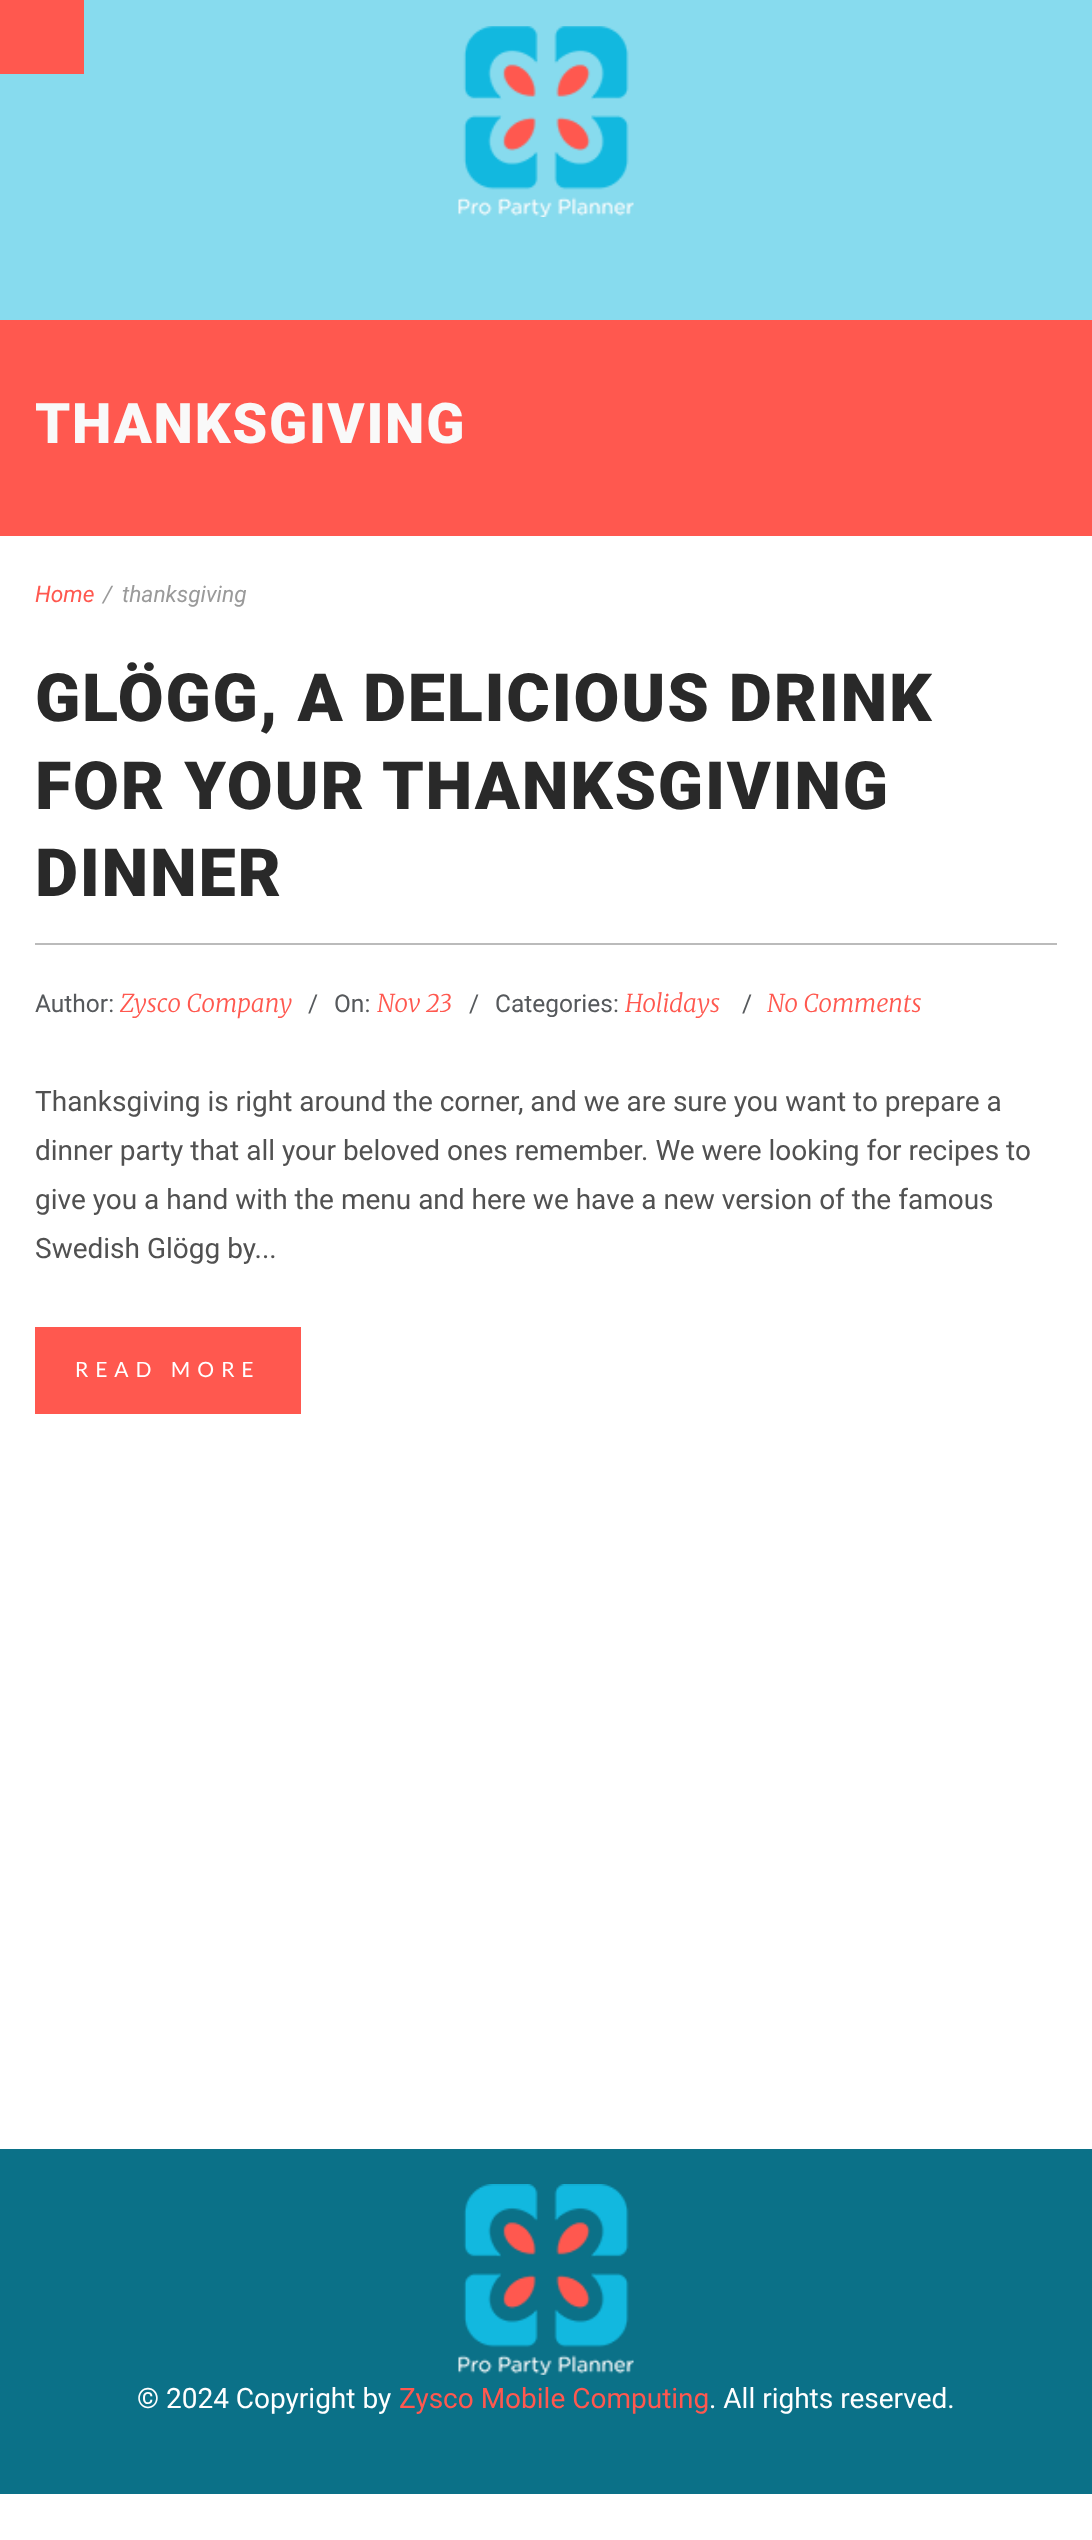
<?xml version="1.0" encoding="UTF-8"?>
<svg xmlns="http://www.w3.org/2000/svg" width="1092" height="2540">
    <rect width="100%" height="100%" fill="#FFFFFF"/>
    <rect x="0" y="0" width="1092" height="320" fill="#87DBEE"/>
    <rect x="0" y="0" width="84" height="74" fill="#FF584F"/>
    <image x="458" y="26" width="176" height="191" href="img_01.png"/>
    <rect x="0" y="320" width="1092" height="216" fill="#FF584F"/>
    <text x="35" y="443" font-family="Roboto" font-size="56" font-weight="900" letter-spacing="1.75" fill="#F9F9F9">THANKSGIVING</text>
    <text x="35" y="602" font-family="Roboto" font-size="22.75" font-style="italic" fill="#FF584F">Home</text>
    <text x="103" y="602" font-family="Roboto" font-size="22.75" font-style="italic" fill="#9A9A9A">/</text>
    <text x="122" y="602" font-family="Roboto" font-size="22.75" font-style="italic" fill="#9A9A9A">thanksgiving</text>
    <text font-family="Roboto" font-size="66.5" font-weight="900" letter-spacing="1.75" fill="#292929">
        <tspan x="35" y="721">GLÖGG, A DELICIOUS DRINK</tspan>
        <tspan x="35" y="809">FOR YOUR THANKSGIVING</tspan>
        <tspan x="35" y="896">DINNER</tspan>
    </text>
    <rect x="35" y="943" width="1022" height="2" fill="#BBBBBB"/>
    <text x="35" y="1012" font-family="Roboto" font-size="24.5" fill="#56595C">Author:</text>
    <text x="120" y="1012" font-family="Merriweather" font-size="24.5" font-weight="300" font-style="italic" fill="#FF584F">Zysco Company</text>
    <text x="308" y="1012" font-family="Roboto" font-size="24.5" fill="#56595C">/</text>
    <text x="334" y="1012" font-family="Roboto" font-size="24.5" fill="#56595C">On:</text>
    <text x="377" y="1012" font-family="Merriweather" font-size="24.5" font-weight="300" font-style="italic" fill="#FF584F">Nov 23</text>
    <text x="469" y="1012" font-family="Roboto" font-size="24.5" fill="#56595C">/</text>
    <text x="495" y="1012" font-family="Roboto" font-size="24.5" fill="#56595C">Categories:</text>
    <text x="625" y="1012" font-family="Merriweather" font-size="24.5" font-weight="300" font-style="italic" fill="#FF584F">Holidays</text>
    <text x="742" y="1012" font-family="Roboto" font-size="24.5" fill="#56595C">/</text>
    <text x="767" y="1012" font-family="Merriweather" font-size="24.5" font-weight="300" font-style="italic" fill="#FF584F">No Comments</text>
    <text font-family="Roboto" font-size="28" fill="#515151">
        <tspan x="35" y="1111">Thanksgiving is right around the corner, and we are sure you want to prepare a</tspan>
        <tspan x="35" y="1160">dinner party that all your beloved ones remember. We were looking for recipes to</tspan>
        <tspan x="35" y="1209">give you a hand with the menu and here we have a new version of the famous</tspan>
        <tspan x="35" y="1258">Swedish Glögg by...</tspan>
    </text>
    <rect x="35" y="1327" width="266" height="87" fill="#FF584F"/>
    <text x="75" y="1377" font-family="Lato" font-size="21" letter-spacing="7" fill="#FFFFFF">READ MORE</text>
    <rect x="0" y="2149" width="1092" height="345" fill="#0B7188"/>
    <image x="458" y="2184" width="176" height="191" href="img_02.png"/>
    <text x="137" y="2408" font-family="Roboto" font-size="28" fill="#FFFFFF">© 2024 Copyright by</text>
    <text x="399" y="2408" font-family="Roboto" font-size="28" fill="#FF584F">Zysco Mobile Computing</text>
    <text x="709" y="2408" font-family="Roboto" font-size="28" fill="#FFFFFF">. All rights reserved.</text>
</svg>
